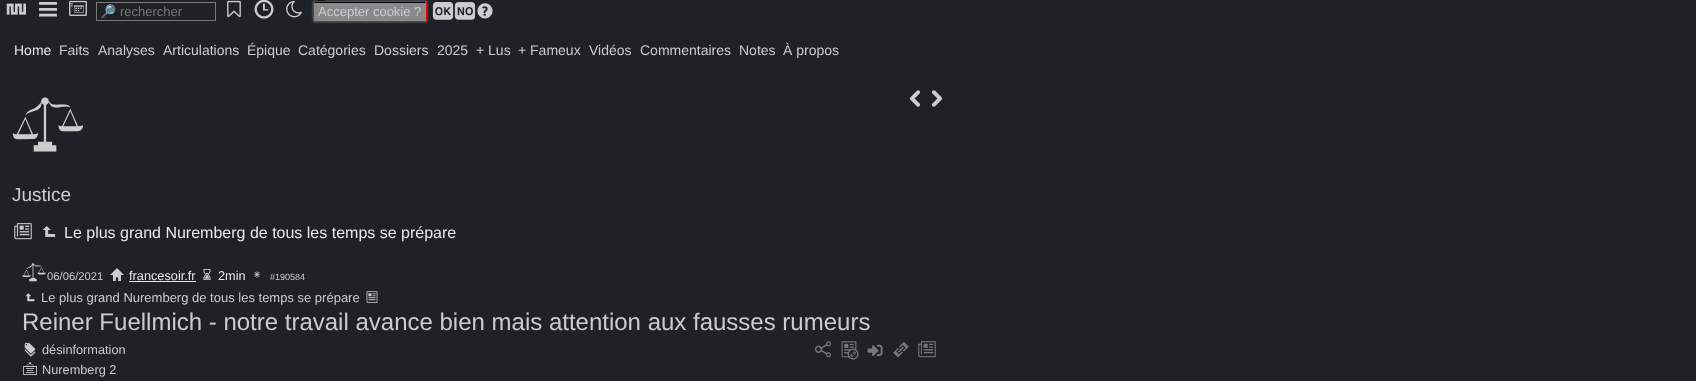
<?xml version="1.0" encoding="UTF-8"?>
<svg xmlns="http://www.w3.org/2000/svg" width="1696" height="381">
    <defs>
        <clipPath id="clip1"><rect x="100" y="4" width="99" height="15"/></clipPath>
        <clipPath id="clip2"><path d="M 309 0 H 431 V 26 H 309 Z M 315 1 H 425 C 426 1 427 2 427 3 V 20 C 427 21 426 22 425 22 H 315 C 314 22 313 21 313 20 V 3 C 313 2 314 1 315 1 Z" clip-rule="evenodd"/></clipPath>
        <filter id="blur1" x="-50%" y="-200%" width="200%" height="500%"><feGaussianBlur stdDeviation="1"/></filter>
    </defs>
    <rect width="100%" height="100%" fill="#1E2125"/>
    <image x="6" y="3" width="20" height="12" href="img_01.png"/>
    <text x="37" y="16" font-family="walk" font-size="22" fill="#CCCCCC">¢</text>
    <image x="69" y="0" width="18" height="16" href="img_02.png"/>
    <rect x="96.5" y="2.5" width="119" height="18" fill="none" stroke="#787878"/>
    <g clip-path="url(#clip1)">
        <text x="100" y="16" font-family="Noto Color Emoji" font-size="13" fill="#787878">🔎</text>
    </g>
    <text x="120" y="16" font-family="Liberation Sans" font-size="13" fill="#787878">rechercher</text>
    <image x="227" y="0" width="14" height="18" href="img_03.png"/>
    <image x="254" y="0" width="20" height="19" href="img_04.png"/>
    <image x="286" y="0" width="16" height="18" href="img_05.png"/>
    <g clip-path="url(#clip2)">
        <rect x="313" y="1" width="114" height="21" rx="2" fill="#787878" filter="url(#blur1)"/>
    </g>
    <rect x="313" y="1" width="114" height="21" rx="2" fill="#F2F2F2" fill-opacity="0.5"/>
    <path d="M 315 3 H 426 V 4 L 425 2 H 333 C 330 2 314 -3 314 4 C 314 3 314 3 315 3 Z" fill="#000000"/>
    <rect x="313.5" y="1.5" width="113" height="20" rx="1.5" fill="none" stroke="#FF0000"/>
    <text x="318" y="16" font-family="Liberation Sans" font-size="13" fill="#CCCCCC">Accepter cookie ?</text>
    <text x="432" y="16" font-family="walk" font-size="22" fill="#CCCCCC">¿</text>
    <image x="454" y="2" width="22" height="18" href="img_06.png"/>
    <text x="476" y="16" font-family="walk" font-size="18" fill="#CCCCCC">?</text>
    <text x="14" y="55" font-family="Liberation Sans" font-size="14" fill="#E8E8E8">Home</text>
    <text x="59" y="55" font-family="Liberation Sans" font-size="14" fill="#CCCCCC">Faits</text>
    <text x="98" y="55" font-family="Liberation Sans" font-size="14" fill="#CCCCCC">Analyses</text>
    <text x="163" y="55" font-family="Liberation Sans" font-size="14" fill="#CCCCCC">Articulations</text>
    <text x="247" y="55" font-family="Liberation Sans" font-size="14" fill="#CCCCCC">Épique</text>
    <text x="298" y="55" font-family="Liberation Sans" font-size="14" fill="#CCCCCC">Catégories</text>
    <text x="374" y="55" font-family="Liberation Sans" font-size="14" fill="#CCCCCC">Dossiers</text>
    <text x="437" y="55" font-family="Liberation Sans" font-size="14" fill="#CCCCCC">2025</text>
    <text x="476" y="55" font-family="Liberation Sans" font-size="14" fill="#CCCCCC">+ Lus</text>
    <text x="518" y="55" font-family="Liberation Sans" font-size="14" fill="#CCCCCC">+ Fameux</text>
    <text x="589" y="55" font-family="Liberation Sans" font-size="14" fill="#CCCCCC">Vidéos</text>
    <text x="640" y="55" font-family="Liberation Sans" font-size="14" fill="#CCCCCC">Commentaires</text>
    <text x="739" y="55" font-family="Liberation Sans" font-size="14" fill="#CCCCCC">Notes</text>
    <text x="783" y="55" font-family="Liberation Sans" font-size="14" fill="#CCCCCC">À propos</text>
    <text x="12" y="148" font-family="walk" font-size="72" fill="#CCCCCC">«</text>
    <text x="12" y="201" font-family="Liberation Sans" font-size="19" fill="#CCCCCC">Justice</text>
    <image x="14" y="223" width="18" height="17" href="img_07.png"/>
    <image x="43" y="226" width="13" height="11" href="img_08.png"/>
    <text x="64" y="238" font-family="Liberation Sans" font-size="16" fill="#E8E8E8">Le plus grand Nuremberg de tous les temps se prépare</text>
    <image x="909" y="90" width="12" height="17" href="img_09.png"/>
    <image x="931" y="90" width="12" height="17" href="img_10.png"/>
    <text x="22" y="280" font-family="walk" font-size="24" fill="#CCCCCC">«</text>
    <text x="47" y="280" font-family="Liberation Sans" font-size="11.25" fill="#CCCCCC">06/06/2021</text>
    <image x="110" y="268" width="14" height="13" href="img_11.png"/>
    <text x="129" y="280" font-family="Liberation Sans" font-size="12.75" fill="#E8E8E8">francesoir.fr</text>
    <rect x="129" y="281" width="67" height="1" fill="#E8E8E8"/>
    <image x="203" y="269" width="8" height="11" href="img_12.png"/>
    <text x="218" y="280" font-family="Liberation Sans" font-size="12.75" fill="#E8E8E8">2min</text>
    <text x="249" y="280" font-family="walk" font-size="16" fill="#CCCCCC">¼</text>
    <text x="270" y="280" font-family="Liberation Sans" font-size="9" fill="#CCCCCC">#190584</text>
    <image x="25" y="293" width="10" height="9" href="img_13.png"/>
    <text x="41" y="302" font-family="Liberation Sans" font-size="13" fill="#CCCCCC">Le plus grand Nuremberg de tous les temps se prépare</text>
    <image x="366" y="291" width="12" height="12" href="img_14.png"/>
    <text x="22" y="330" font-family="Liberation Sans" font-size="24" fill="#CCCCCC">Reiner Fuellmich - notre travail avance bien mais attention aux fausses rumeurs</text>
    <image x="24" y="342" width="12" height="15" href="img_15.png"/>
    <text x="42" y="354" font-family="Liberation Sans" font-size="12.75" fill="#CCCCCC">désinformation</text>
    <image x="23" y="362" width="14" height="13" href="img_16.png"/>
    <text x="42" y="374" font-family="Liberation Sans" font-size="12.75" fill="#CCCCCC">Nuremberg 2</text>
    <image x="815" y="341" width="16" height="17" href="img_17.png"/>
    <image x="841" y="341" width="18" height="19" href="img_18.png"/>
    <image x="867" y="344" width="16" height="13" href="img_19.png"/>
    <text x="890" y="356" font-family="walk" font-size="22" fill="#787878">¥</text>
    <image x="918" y="341" width="18" height="17" href="img_20.png"/>
</svg>
